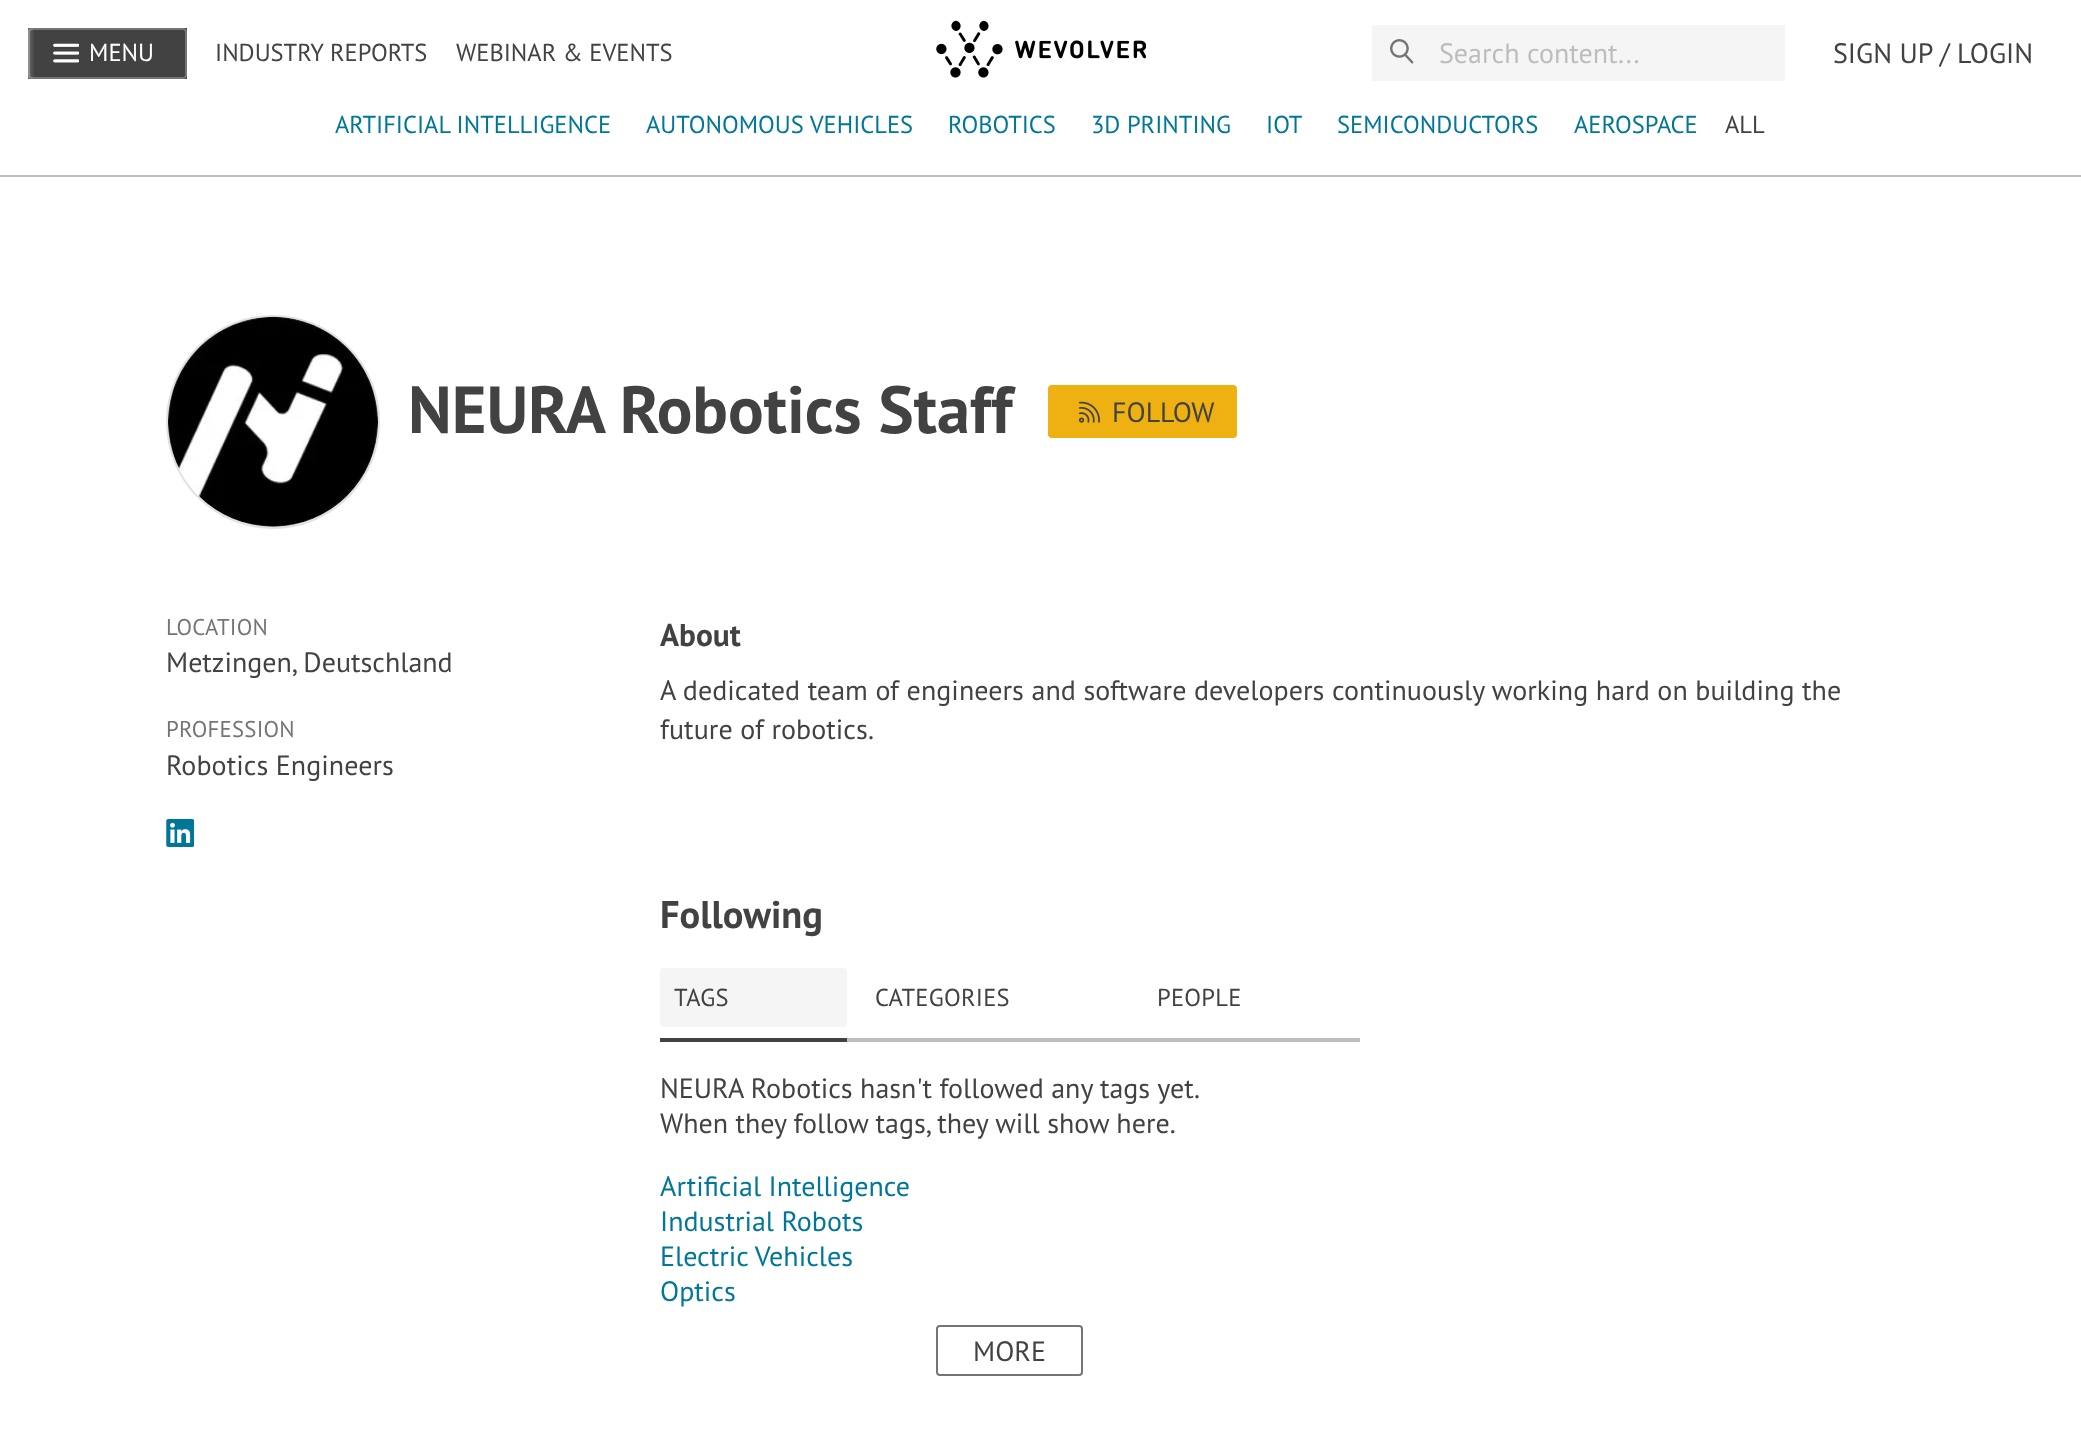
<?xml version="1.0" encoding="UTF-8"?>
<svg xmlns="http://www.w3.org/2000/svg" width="2081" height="1429">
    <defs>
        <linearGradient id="g1" gradientUnits="userSpaceOnUse" x1="35" y1="88" x2="-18" y2="88"><stop offset="0" stop-color="#FFFFFF" stop-opacity="0"/><stop offset="0.6" stop-color="#FFFFFF"/></linearGradient>
    </defs>
    <rect width="100%" height="100%" fill="#FFFFFF"/>
    <rect x="0" y="175" width="2081" height="2" fill="#BDBDBD"/>
    <rect x="28" y="28" width="159" height="51" fill="#424242"/>
    <rect x="29" y="29" width="157" height="49" rx="3" fill="none" stroke="#757575" stroke-width="2"/>
    <image x="53" y="43" width="26" height="20" href="img_01.png"/>
    <text x="89" y="61" font-family="PT Sans" font-size="24.5" fill="#FFFFFF">MENU</text>
    <text x="215" y="61" font-family="'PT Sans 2'" font-size="24.5" fill="#424242">INDUSTRY REPORTS</text>
    <text x="456" y="61" font-family="'PT Sans 2'" font-size="24.5" fill="#424242">WEBINAR &amp; EVENTS</text>
    <image x="936" y="20" width="210" height="58" href="img_02.png"/>
    <rect x="1372" y="25" width="413" height="56" fill="#F5F5F5"/>
    <image x="1390" y="39" width="24" height="25" href="img_03.png"/>
    <text x="1439" y="63" font-family="PT Sans" font-size="28" fill="#BDBDBD">Search content...</text>
    <text x="1833" y="63" font-family="PT Sans" font-size="28" fill="#424242">SIGN UP / LOGIN</text>
    <rect x="28" y="28" width="6" height="51" fill="url(#g1)"/>
    <text x="335" y="133" font-family="'PT Sans 2'" font-size="24.5" fill="#007798">ARTIFICIAL INTELLIGENCE</text>
    <text x="646" y="133" font-family="'PT Sans 2'" font-size="24.5" fill="#007798">AUTONOMOUS VEHICLES</text>
    <text x="948" y="133" font-family="'PT Sans 2'" font-size="24.5" fill="#007798">ROBOTICS</text>
    <text x="1091" y="133" font-family="'PT Sans 2'" font-size="24.5" fill="#007798">3D PRINTING</text>
    <text x="1266" y="133" font-family="'PT Sans 2'" font-size="24.5" fill="#007798">IOT</text>
    <text x="1337" y="133" font-family="'PT Sans 2'" font-size="24.5" fill="#007798">SEMICONDUCTORS</text>
    <text x="1574" y="133" font-family="'PT Sans 2'" font-size="24.5" fill="#007798">AEROSPACE</text>
    <text x="1725" y="133" font-family="'PT Sans 2'" font-size="24.5" fill="#424242">ALL</text>
    <circle cx="273" cy="422" r="106" fill="none" stroke="#E1E1E1" stroke-width="2"/>
    <image x="168" y="316" width="210" height="211" href="img_04.png"/>
    <text x="408" y="433" font-family="PT Sans" font-size="66.5" font-weight="700" fill="#424242">NEURA Robotics Staff</text>
    <rect x="1049" y="386" width="187" height="51" rx="3" fill="#EEB111" stroke="#EEB111" stroke-width="2"/>
    <image x="1078" y="401" width="22" height="22" href="img_05.png"/>
    <text x="1112" y="422" font-family="PT Sans" font-size="28" fill="#424242">FOLLOW</text>
    <text x="166" y="635" font-family="PT Sans" font-size="22.75" letter-spacing="0.25" fill="#757575">LOCATION</text>
    <text x="166" y="672" font-family="'PT Sans 2'" font-size="28" fill="#424242">Metzingen, Deutschland</text>
    <text x="166" y="737" font-family="PT Sans" font-size="22.75" letter-spacing="0.25" fill="#757575">PROFESSION</text>
    <text x="166" y="775" font-family="PT Sans" font-size="28" letter-spacing="0.05" fill="#424242">Robotics Engineers</text>
    <image x="166" y="819" width="28" height="28" href="img_06.png"/>
    <text x="660" y="646" font-family="PT Sans" font-size="31.5" font-weight="700" fill="#424242">About</text>
    <text font-family="PT Sans" font-size="28" letter-spacing="0.05" fill="#424242">
        <tspan x="660" y="700">A dedicated team of engineers and software developers continuously working hard on building the</tspan>
        <tspan x="660" y="739">future of robotics.</tspan>
    </text>
    <text x="660" y="928" font-family="PT Sans" font-size="38.5" font-weight="700" fill="#424242">Following</text>
    <rect x="847" y="1038" width="513" height="4" fill="#BDBDBD"/>
    <rect x="660" y="968" width="187" height="59" rx="4" fill="#F5F5F5"/>
    <text x="674" y="1006" font-family="PT Sans" font-size="24.5" letter-spacing="0.25" fill="#424242">TAGS</text>
    <rect x="660" y="1038" width="187" height="4" fill="#424242"/>
    <text x="875" y="1006" font-family="PT Sans" font-size="24.5" letter-spacing="0.25" fill="#424242">CATEGORIES</text>
    <text x="1157" y="1006" font-family="PT Sans" font-size="24.5" letter-spacing="0.25" fill="#424242">PEOPLE</text>
    <text font-family="'PT Sans 2'" font-size="28" fill="#424242">
        <tspan x="660" y="1098">NEURA Robotics hasn't followed any tags yet.</tspan>
        <tspan x="660" y="1133">When they follow tags, they will show here.</tspan>
    </text>
    <text font-family="'PT Sans 2'" font-size="28" fill="#007798">
        <tspan x="660" y="1196">Artificial Intelligence</tspan>
        <tspan x="660" y="1231">Industrial Robots</tspan>
        <tspan x="660" y="1266">Electric Vehicles</tspan>
        <tspan x="660" y="1301">Optics</tspan>
    </text>
    <rect x="937" y="1326" width="145" height="49" rx="3" fill="none" stroke="#757575" stroke-width="2"/>
    <text x="973" y="1361" font-family="PT Sans" font-size="28" fill="#424242">MORE</text>
</svg>
